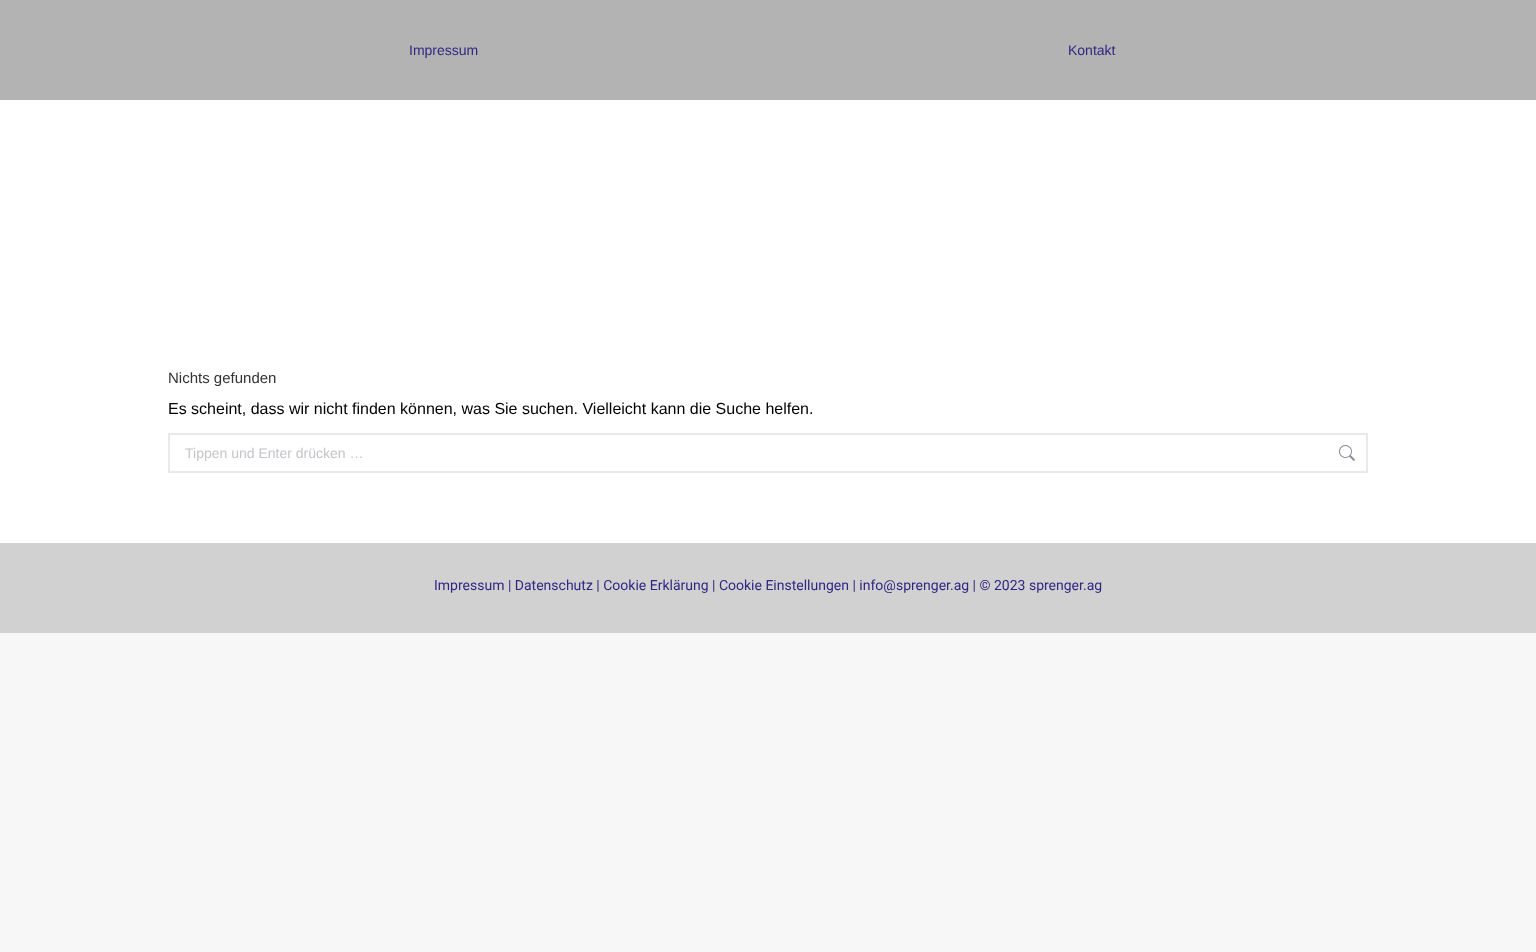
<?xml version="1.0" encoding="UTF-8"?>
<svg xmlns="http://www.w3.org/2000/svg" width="1536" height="952">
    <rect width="100%" height="100%" fill="#F7F7F7"/>
    <rect x="0" y="100" width="1536" height="443" fill="#FFFFFF"/>
    <rect x="0" y="0" width="1536" height="100" fill="#B3B3B3"/>
    <text x="409" y="55" font-family="Liberation Sans" font-size="14" fill="#312782">Impressum</text>
    <text x="1068" y="55" font-family="Liberation Sans" font-size="14" fill="#312782">Kontakt</text>
    <text x="168" y="383" font-family="Liberation Sans" font-size="15" fill="#333333">Nichts gefunden</text>
    <text x="168" y="414" font-family="Liberation Sans" font-size="16" fill="#000000">Es scheint, dass wir nicht finden können, was Sie suchen. Vielleicht kann die Suche helfen.</text>
    <rect x="169" y="434" width="1198" height="38" fill="none" stroke="#E9E9E9" stroke-width="2"/>
    <text x="185" y="458" font-family="Liberation Sans" font-size="14" fill="#C4C5C9">Tippen und Enter drücken …</text>
    <image x="1339" y="445" width="16" height="16" href="img_01.png"/>
    <rect x="0" y="543" width="1536" height="90" fill="#D1D1D1"/>
    <text x="434" y="590" font-family="Roboto" font-size="14" fill="#312782">Impressum | Datenschutz | Cookie Erklärung | Cookie Einstellungen | info@sprenger.ag | © 2023 sprenger.ag</text>
</svg>
